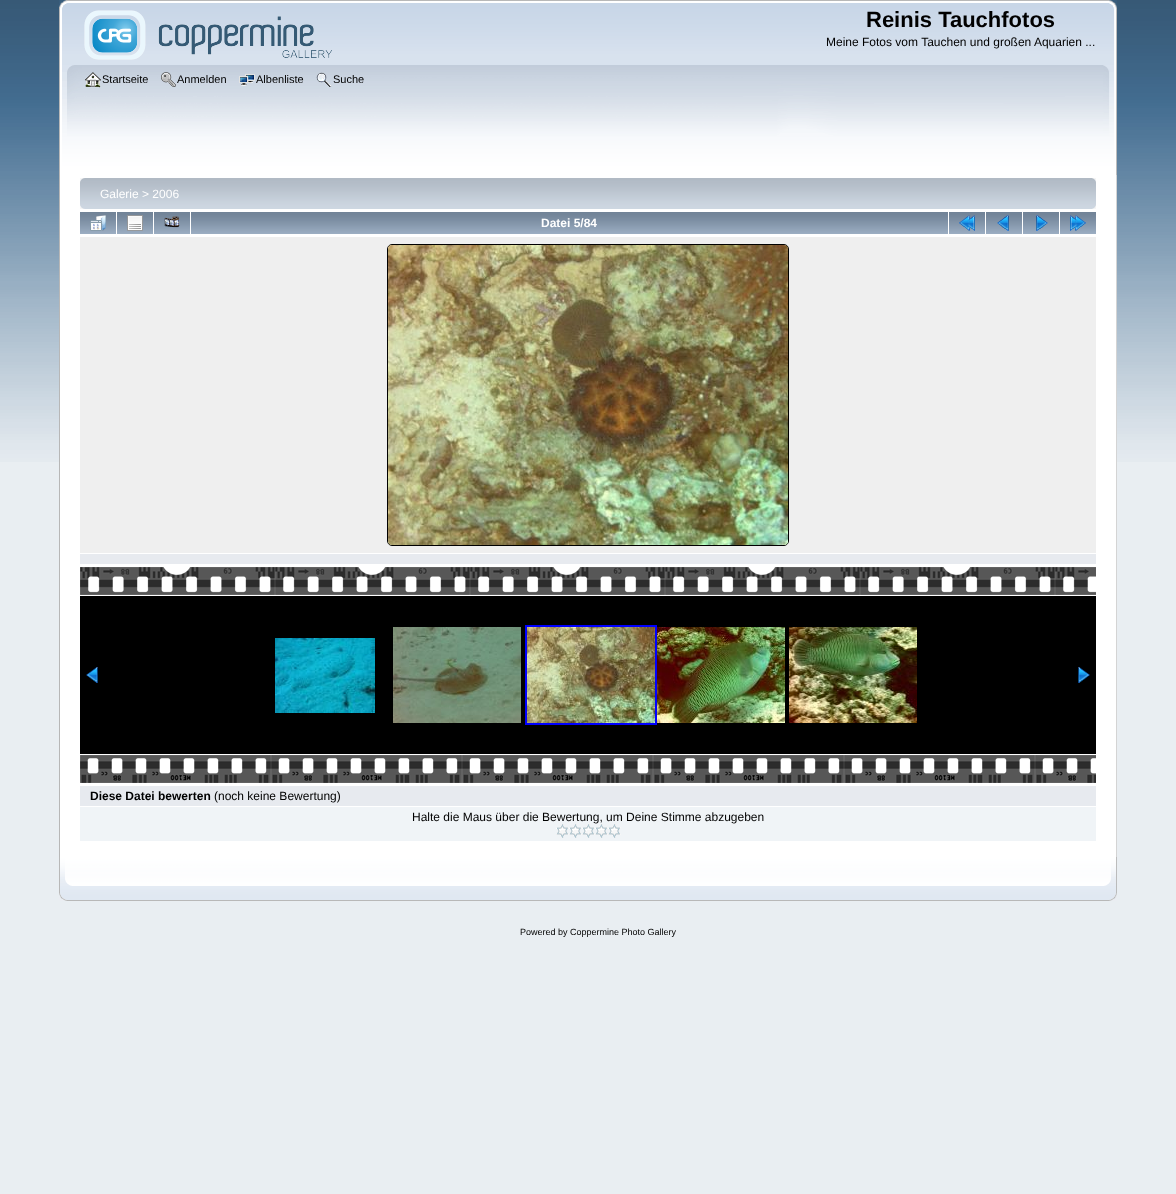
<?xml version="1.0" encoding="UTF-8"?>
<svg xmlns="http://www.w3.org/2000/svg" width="1176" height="1194">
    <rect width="100%" height="100%" fill="#E9EEF2"/>
    <image x="0" y="0" width="1176" height="462" href="img_01.png"/>
    <image x="59" y="0" width="1050" height="65" href="img_02.png"/>
    <image x="1109" y="0" width="8" height="65" href="img_03.png"/>
    <image x="84" y="10" width="248" height="50" href="img_04.png"/>
    <text x="866" y="27" font-family="Liberation Sans" font-size="22" font-weight="700" fill="#000000">Reinis Tauchfotos</text>
    <text x="826" y="46" font-family="Liberation Sans" font-size="12" fill="#000000">Meine Fotos vom Tauchen und großen Aquarien ...</text>
    <image x="59" y="65" width="1044" height="110" href="img_05.png"/>
    <image x="1103" y="65" width="14" height="110" href="img_06.png"/>
    <image x="85" y="72" width="16" height="16" href="img_07.png"/>
    <text x="102" y="83" font-family="Liberation Sans" font-size="11" fill="#000000">Startseite</text>
    <image x="161" y="72" width="15" height="15" href="img_08.png"/>
    <text x="177" y="83" font-family="Liberation Sans" font-size="11" fill="#000000">Anmelden</text>
    <image x="239" y="74" width="16" height="12" href="img_09.png"/>
    <text x="256" y="83" font-family="Liberation Sans" font-size="11" fill="#000000">Albenliste</text>
    <image x="316" y="72" width="16" height="15" href="img_10.png"/>
    <text x="333" y="83" font-family="Liberation Sans" font-size="11" fill="#000000">Suche</text>
    <rect x="60" y="175" width="1056" height="682" fill="#FFFFFF"/>
    <rect x="59" y="175" width="1" height="682" fill="#B7B7B7"/>
    <rect x="1116" y="175" width="1" height="682" fill="#D4D4D4"/>
    <image x="80" y="178" width="1012" height="31" href="img_11.png"/>
    <image x="1092" y="178" width="4" height="31" href="img_12.png"/>
    <text x="100" y="198" font-family="Liberation Sans" font-size="12" fill="#FFFFFF">Galerie &gt; 2006</text>
    <image x="80" y="212" width="36" height="22" href="img_13.png"/>
    <image x="90" y="215" width="16" height="16" href="img_14.png"/>
    <image x="117" y="212" width="36" height="22" href="img_13.png"/>
    <image x="127" y="215" width="16" height="16" href="img_15.png"/>
    <image x="154" y="212" width="36" height="22" href="img_13.png"/>
    <image x="164" y="216" width="16" height="12" href="img_16.png"/>
    <image x="191" y="212" width="757" height="22" href="img_17.png"/>
    <text x="541" y="227" font-family="Liberation Sans" font-size="12" font-weight="700" fill="#FFFFFF">Datei 5/84</text>
    <image x="949" y="212" width="36" height="22" href="img_13.png"/>
    <image x="959" y="215" width="16" height="16" href="img_18.png"/>
    <image x="986" y="212" width="36" height="22" href="img_13.png"/>
    <image x="997" y="215" width="12" height="16" href="img_19.png"/>
    <image x="1023" y="212" width="36" height="22" href="img_13.png"/>
    <image x="1036" y="215" width="12" height="16" href="img_20.png"/>
    <image x="1060" y="212" width="36" height="22" href="img_13.png"/>
    <image x="1070" y="215" width="16" height="16" href="img_21.png"/>
    <rect x="80" y="237" width="1016" height="316" fill="#EFEFEF"/>
    <rect x="387.5" y="244.5" width="401" height="301" rx="4.5" fill="none" stroke="#000000"/>
    <image x="388" y="245" width="400" height="300" href="img_22.png"/>
    <rect x="80" y="554" width="1016" height="10" fill="#E7EAEF"/>
    <image x="80" y="567" width="1016" height="28" href="img_23.png"/>
    <rect x="80" y="596" width="1016" height="158" fill="#000000"/>
    <image x="86" y="667" width="12" height="16" href="img_24.png"/>
    <image x="275" y="638" width="100" height="75" href="img_25.png"/>
    <image x="393" y="627" width="128" height="96" href="img_26.png"/>
    <rect x="526" y="626" width="130" height="98" fill="none" stroke="#0000FF" stroke-width="2"/>
    <image x="527" y="627" width="128" height="96" href="img_27.png"/>
    <image x="657" y="627" width="128" height="96" href="img_28.png"/>
    <image x="789" y="627" width="128" height="96" href="img_29.png"/>
    <image x="1078" y="667" width="12" height="16" href="img_30.png"/>
    <image x="80" y="755" width="1016" height="28" href="img_31.png"/>
    <rect x="80" y="786" width="1016" height="20" fill="#E7EAEF"/>
    <text x="90" y="800" font-family="Liberation Sans" font-size="12" font-weight="700" fill="#000000">Diese Datei bewerten</text>
    <text x="214" y="800" font-family="Liberation Sans" font-size="12" fill="#000000">(noch keine Bewertung)</text>
    <rect x="80" y="807" width="1016" height="34" fill="#F0F4F7"/>
    <text x="412" y="821" font-family="Liberation Sans" font-size="12" fill="#000000">Halte die Maus über die Bewertung, um Deine Stimme abzugeben</text>
    <image x="556" y="824" width="13" height="14" href="img_32.png"/>
    <image x="569" y="824" width="13" height="14" href="img_32.png"/>
    <image x="582" y="824" width="13" height="14" href="img_32.png"/>
    <image x="595" y="824" width="13" height="14" href="img_32.png"/>
    <image x="608" y="824" width="13" height="14" href="img_32.png"/>
    <image x="59" y="857" width="1045" height="44" href="img_33.png"/>
    <image x="1104" y="857" width="13" height="44" href="img_34.png"/>
    <text x="520" y="935" font-family="Liberation Sans" font-size="9" fill="#000000">Powered by Coppermine Photo Gallery</text>
</svg>
